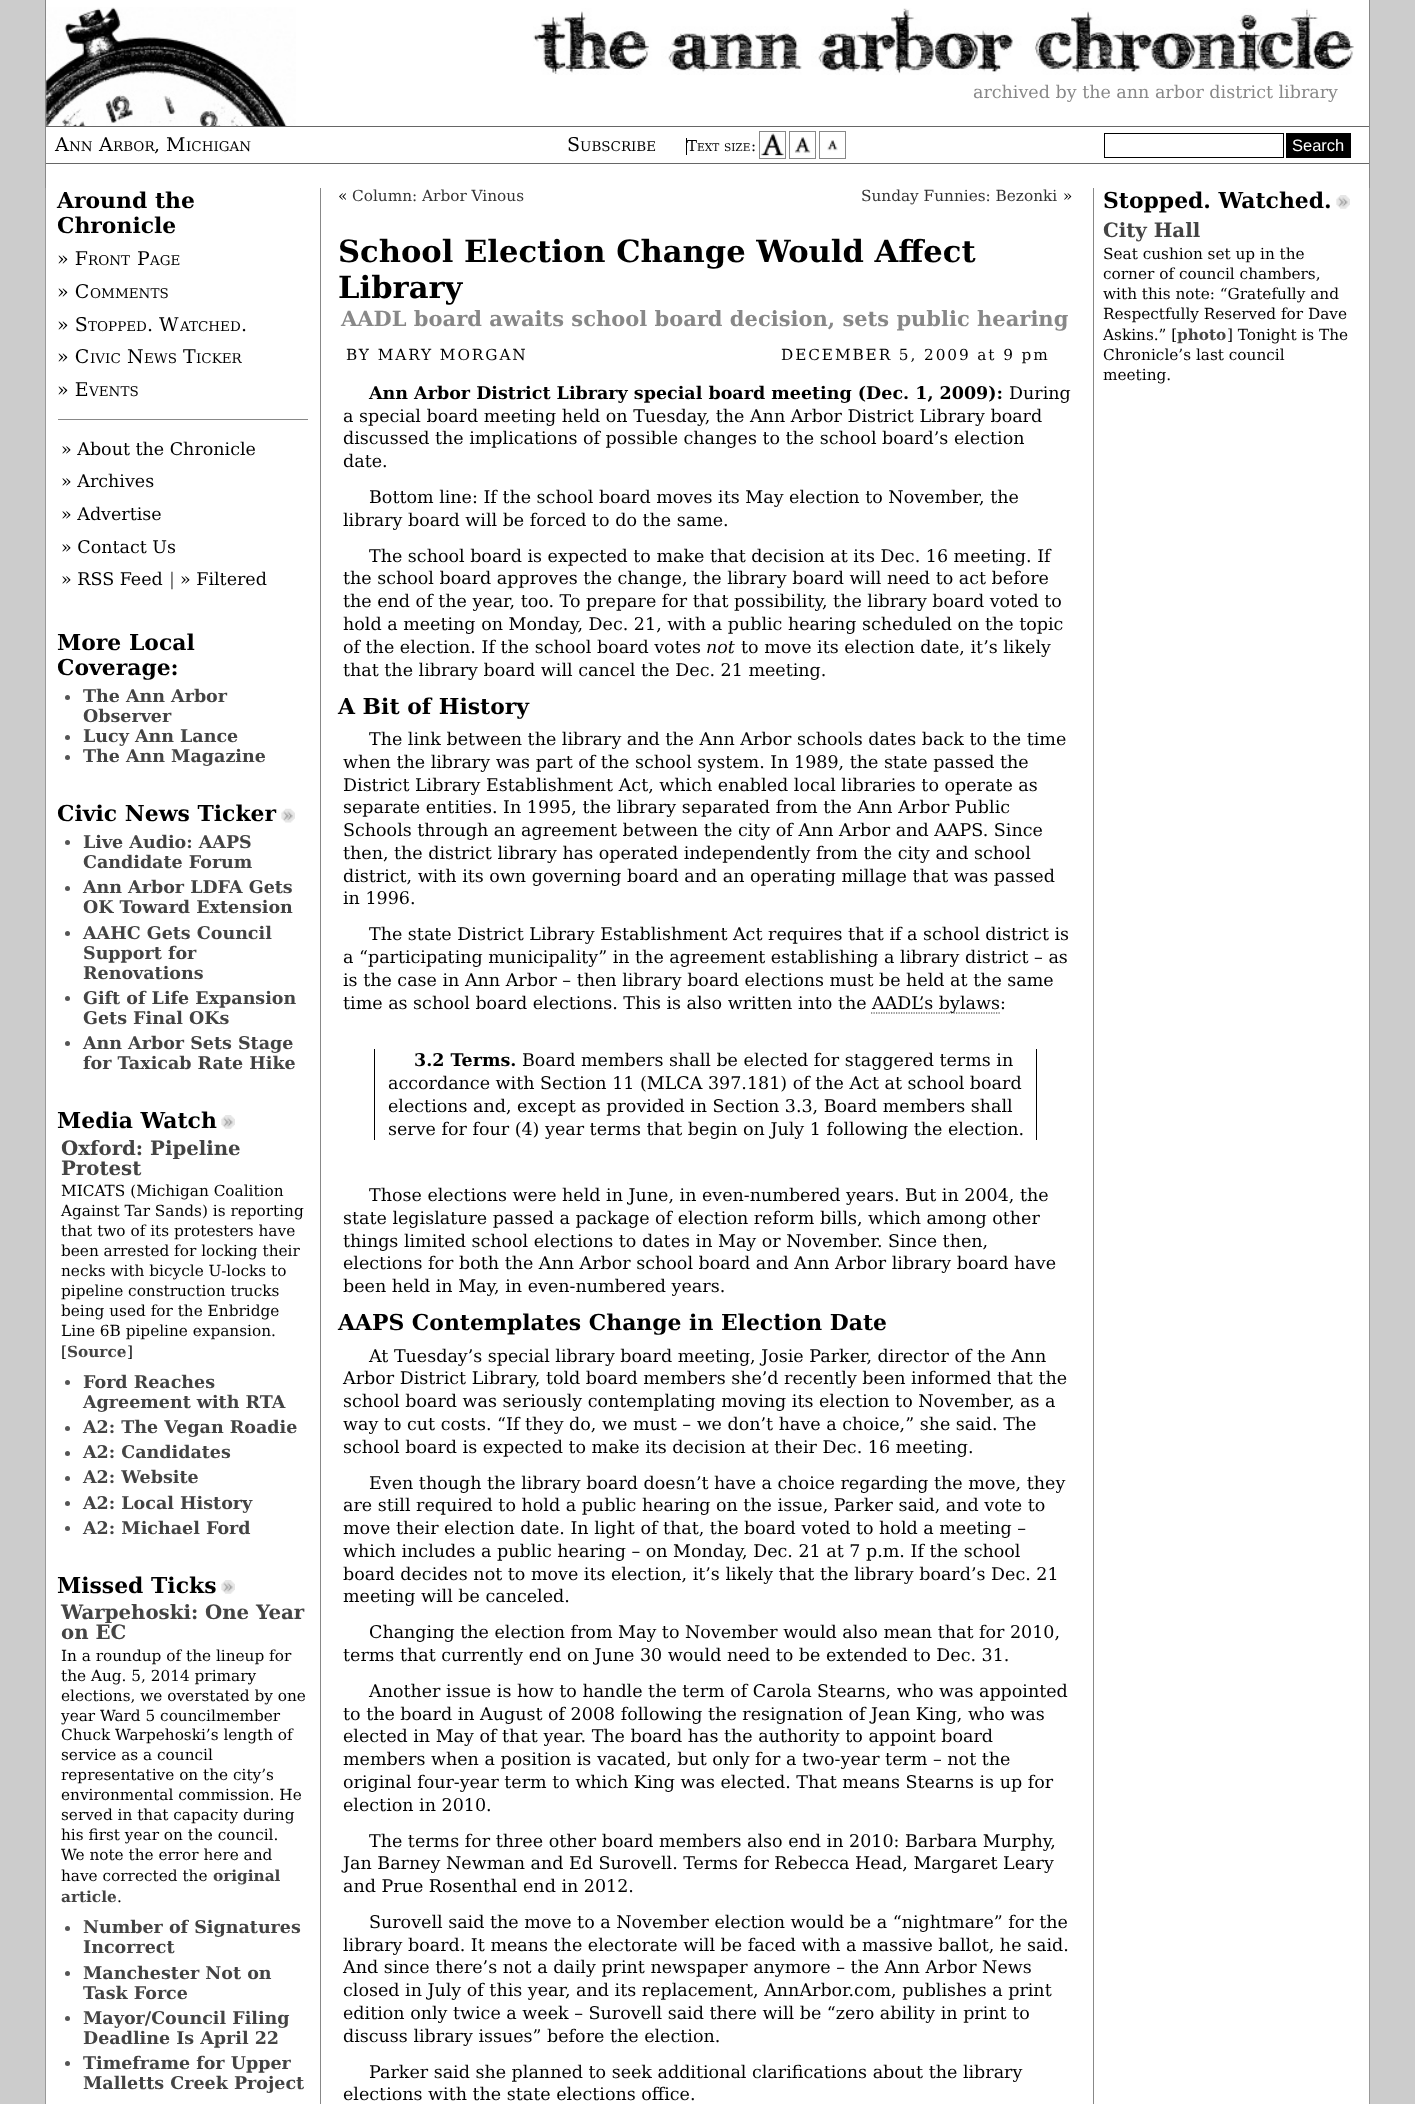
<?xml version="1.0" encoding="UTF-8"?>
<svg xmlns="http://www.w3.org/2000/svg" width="1415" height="2104">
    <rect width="100%" height="100%" fill="#CCCCCC"/>
    <rect x="46" y="0" width="1323" height="2104" fill="#FFFFFF"/>
    <image x="46" y="7" width="250" height="119" href="img_01.png"/>
    <rect x="1369" y="0" width="1" height="188" fill="#888888"/>
    <rect x="45" y="0" width="1" height="188" fill="#888888"/>
    <image x="533" y="8" width="821" height="67" href="img_02.png"/>
    <text x="973" y="98" font-family="DejaVu Serif" font-size="17.5" fill="#888888">archived by the ann arbor district library</text>
    <rect x="46" y="126" width="1323" height="1" fill="#666666"/>
    <rect x="46" y="163" width="1323" height="1" fill="#666666"/>
    <text x="55" y="151" font-family="DejaVu Serif" font-size="19" fill="#000000">A</text>
    <text x="69" y="151" font-family="DejaVu Serif" font-size="13.5" fill="#000000">NN</text>
    <text x="99" y="151" font-family="DejaVu Serif" font-size="19" fill="#000000">A</text>
    <text x="113" y="151" font-family="DejaVu Serif" font-size="13.5" fill="#000000">RBOR</text>
    <text x="154" y="151" font-family="DejaVu Serif" font-size="19" fill="#000000">, M</text>
    <text x="186" y="151" font-family="DejaVu Serif" font-size="13.5" fill="#000000">ICHIGAN</text>
    <text x="567" y="151" font-family="DejaVu Serif" font-size="19" fill="#000000">S</text>
    <text x="580" y="151" font-family="DejaVu Serif" font-size="13.5" fill="#000000">UBSCRIBE</text>
    <rect x="686" y="138" width="1" height="17" fill="#000000"/>
    <text x="687" y="151" font-family="DejaVu Serif" font-size="15" fill="#000000">T</text>
    <text x="697" y="151" font-family="DejaVu Serif" font-size="10.5" fill="#000000">EXT</text>
    <text x="724" y="151" font-family="DejaVu Serif" font-size="10.5" fill="#000000">SIZE</text>
    <text x="751" y="151" font-family="DejaVu Serif" font-size="15" fill="#000000">:</text>
    <rect x="759.5" y="131.5" width="26" height="27" fill="none" stroke="#888888"/>
    <image x="761" y="133" width="23" height="23" href="img_03.png"/>
    <rect x="789.5" y="131.5" width="26" height="27" fill="none" stroke="#888888"/>
    <image x="794" y="137" width="17" height="16" href="img_04.png"/>
    <rect x="819.5" y="131.5" width="26" height="27" fill="none" stroke="#888888"/>
    <image x="827" y="140" width="11" height="11" href="img_05.png"/>
    <rect x="1104.5" y="133.5" width="179" height="24" fill="none" stroke="#000000"/>
    <rect x="1286" y="133" width="65" height="25" fill="#000000"/>
    <text x="1292" y="151" font-family="Liberation Sans" font-size="16.5" fill="#FFFFFF">Search</text>
    <rect x="1369" y="188" width="1" height="1916" fill="#999999"/>
    <rect x="45" y="188" width="1" height="1916" fill="#999999"/>
    <rect x="1093" y="188" width="1" height="1916" fill="#888888"/>
    <rect x="320" y="188" width="1" height="1916" fill="#888888"/>
    <text font-family="DejaVu Serif" font-size="21.9" font-weight="700" fill="#000000">
        <tspan x="57" y="208">Around the</tspan>
        <tspan x="57" y="233">Chronicle</tspan>
    </text>
    <rect x="58" y="419" width="250" height="1" fill="#888888"/>
    <text x="57" y="265" font-family="DejaVu Serif" font-size="19" fill="#000000">» F</text>
    <text x="88" y="265" font-family="DejaVu Serif" font-size="13.5" fill="#000000">RONT</text>
    <text x="137" y="265" font-family="DejaVu Serif" font-size="19" fill="#000000">P</text>
    <text x="150" y="265" font-family="DejaVu Serif" font-size="13.5" fill="#000000">AGE</text>
    <text x="57" y="298" font-family="DejaVu Serif" font-size="19" fill="#000000">» C</text>
    <text x="90" y="298" font-family="DejaVu Serif" font-size="13.5" fill="#000000">OMMENTS</text>
    <text x="57" y="331" font-family="DejaVu Serif" font-size="19" fill="#000000">» S</text>
    <text x="88" y="331" font-family="DejaVu Serif" font-size="13.5" fill="#000000">TOPPED</text>
    <text x="147" y="331" font-family="DejaVu Serif" font-size="19" fill="#000000">. W</text>
    <text x="180" y="331" font-family="DejaVu Serif" font-size="13.5" fill="#000000">ATCHED</text>
    <text x="241" y="331" font-family="DejaVu Serif" font-size="19" fill="#000000">.</text>
    <text x="57" y="363" font-family="DejaVu Serif" font-size="19" fill="#000000">» C</text>
    <text x="90" y="363" font-family="DejaVu Serif" font-size="13.5" fill="#000000">IVIC</text>
    <text x="127" y="363" font-family="DejaVu Serif" font-size="19" fill="#000000">N</text>
    <text x="144" y="363" font-family="DejaVu Serif" font-size="13.5" fill="#000000">EWS</text>
    <text x="183" y="363" font-family="DejaVu Serif" font-size="19" fill="#000000">T</text>
    <text x="196" y="363" font-family="DejaVu Serif" font-size="13.5" fill="#000000">ICKER</text>
    <text x="57" y="396" font-family="DejaVu Serif" font-size="19" fill="#000000">» E</text>
    <text x="89" y="396" font-family="DejaVu Serif" font-size="13.5" fill="#000000">VENTS</text>
    <text font-family="DejaVu Serif" font-size="17.5" fill="#000000">
        <tspan x="61" y="455">» About the Chronicle</tspan>
        <tspan x="61" y="487">» Archives</tspan>
        <tspan x="61" y="520">» Advertise</tspan>
        <tspan x="61" y="553">» Contact Us</tspan>
        <tspan x="61" y="585">» RSS Feed</tspan>
    </text>
    <text x="169" y="585" font-family="DejaVu Serif" font-size="17.5" fill="#555555">|</text>
    <text x="180" y="585" font-family="DejaVu Serif" font-size="17.5" fill="#000000">» Filtered</text>
    <text font-family="DejaVu Serif" font-size="21.9" font-weight="700" fill="#000000">
        <tspan x="57" y="650">More Local</tspan>
        <tspan x="57" y="675">Coverage:</tspan>
    </text>
    <circle cx="67.5" cy="697.5" r="2.5" fill="#555555"/>
    <text font-family="DejaVu Serif" font-size="17.5" font-weight="700" fill="#444444">
        <tspan x="83" y="702">The Ann Arbor</tspan>
        <tspan x="83" y="722">Observer</tspan>
    </text>
    <circle cx="67.5" cy="737.5" r="2.5" fill="#555555"/>
    <text x="83" y="742" font-family="DejaVu Serif" font-size="17.5" font-weight="700" fill="#444444">Lucy Ann Lance</text>
    <circle cx="67.5" cy="757.5" r="2.5" fill="#555555"/>
    <text x="83" y="762" font-family="DejaVu Serif" font-size="17.5" font-weight="700" fill="#444444">The Ann Magazine</text>
    <text x="57" y="821" font-family="DejaVu Serif" font-size="21.9" font-weight="700" fill="#000000">Civic News Ticker</text>
    <image x="281" y="808" width="14" height="15" href="img_06.png"/>
    <circle cx="67.5" cy="842.5" r="2.5" fill="#555555"/>
    <text font-family="DejaVu Serif" font-size="17.5" font-weight="700" fill="#444444">
        <tspan x="83" y="848">Live Audio: AAPS</tspan>
        <tspan x="83" y="868">Candidate Forum</tspan>
    </text>
    <circle cx="67.5" cy="888.5" r="2.5" fill="#555555"/>
    <text font-family="DejaVu Serif" font-size="17.5" font-weight="700" fill="#444444">
        <tspan x="83" y="893">Ann Arbor LDFA Gets</tspan>
        <tspan x="83" y="913">OK Toward Extension</tspan>
    </text>
    <circle cx="67.5" cy="933.5" r="2.5" fill="#555555"/>
    <text font-family="DejaVu Serif" font-size="17.5" font-weight="700" fill="#444444">
        <tspan x="83" y="939">AAHC Gets Council</tspan>
        <tspan x="83" y="959">Support for</tspan>
        <tspan x="83" y="979">Renovations</tspan>
    </text>
    <circle cx="67.5" cy="998.5" r="2.5" fill="#555555"/>
    <text font-family="DejaVu Serif" font-size="17.5" font-weight="700" fill="#444444">
        <tspan x="83" y="1004">Gift of Life Expansion</tspan>
        <tspan x="83" y="1024">Gets Final OKs</tspan>
    </text>
    <circle cx="67.5" cy="1043.5" r="2.5" fill="#555555"/>
    <text font-family="DejaVu Serif" font-size="17.5" font-weight="700" fill="#444444">
        <tspan x="83" y="1049">Ann Arbor Sets Stage</tspan>
        <tspan x="83" y="1069">for Taxicab Rate Hike</tspan>
    </text>
    <text x="57" y="1128" font-family="DejaVu Serif" font-size="21.9" font-weight="700" fill="#000000">Media Watch</text>
    <image x="221" y="1115" width="14" height="14" href="img_07.png"/>
    <text font-family="DejaVu Serif" font-size="19.75" font-weight="700" fill="#444444">
        <tspan x="61" y="1155">Oxford: Pipeline</tspan>
        <tspan x="61" y="1175">Protest</tspan>
    </text>
    <text font-family="DejaVu Serif" font-size="15.3" fill="#000000">
        <tspan x="61" y="1196">MICATS (Michigan Coalition</tspan>
        <tspan x="61" y="1216">Against Tar Sands) is reporting</tspan>
        <tspan x="61" y="1236">that two of its protesters have</tspan>
        <tspan x="61" y="1256">been arrested for locking their</tspan>
        <tspan x="61" y="1276">necks with bicycle U-locks to</tspan>
        <tspan x="61" y="1296">pipeline construction trucks</tspan>
        <tspan x="61" y="1316">being used for the Enbridge</tspan>
        <tspan x="61" y="1336">Line 6B pipeline expansion.</tspan>
        <tspan x="61" y="1357">[</tspan>
    </text>
    <text x="67" y="1357" font-family="DejaVu Serif" font-size="15.3" font-weight="700" fill="#444444">Source</text>
    <text x="127" y="1357" font-family="DejaVu Serif" font-size="15.3" fill="#000000">]</text>
    <circle cx="67.5" cy="1382.5" r="2.5" fill="#555555"/>
    <text font-family="DejaVu Serif" font-size="17.5" font-weight="700" fill="#444444">
        <tspan x="83" y="1388">Ford Reaches</tspan>
        <tspan x="83" y="1408">Agreement with RTA</tspan>
    </text>
    <circle cx="67.5" cy="1428.5" r="2.5" fill="#555555"/>
    <text x="83" y="1433" font-family="DejaVu Serif" font-size="17.5" font-weight="700" fill="#444444">A2: The Vegan Roadie</text>
    <circle cx="67.5" cy="1453.5" r="2.5" fill="#555555"/>
    <text x="83" y="1458" font-family="DejaVu Serif" font-size="17.5" font-weight="700" fill="#444444">A2: Candidates</text>
    <circle cx="67.5" cy="1478.5" r="2.5" fill="#555555"/>
    <text x="83" y="1483" font-family="DejaVu Serif" font-size="17.5" font-weight="700" fill="#444444">A2: Website</text>
    <circle cx="67.5" cy="1503.5" r="2.5" fill="#555555"/>
    <text x="83" y="1509" font-family="DejaVu Serif" font-size="17.5" font-weight="700" fill="#444444">A2: Local History</text>
    <circle cx="67.5" cy="1528.5" r="2.5" fill="#555555"/>
    <text x="83" y="1534" font-family="DejaVu Serif" font-size="17.5" font-weight="700" fill="#444444">A2: Michael Ford</text>
    <text x="57" y="1593" font-family="DejaVu Serif" font-size="21.9" font-weight="700" fill="#000000">Missed Ticks</text>
    <image x="221" y="1580" width="14" height="14" href="img_07.png"/>
    <text font-family="DejaVu Serif" font-size="19.75" font-weight="700" fill="#444444">
        <tspan x="61" y="1619">Warpehoski: One Year</tspan>
        <tspan x="61" y="1639">on EC</tspan>
    </text>
    <text font-family="DejaVu Serif" font-size="15.3" fill="#000000">
        <tspan x="61" y="1661">In a roundup of the lineup for</tspan>
        <tspan x="61" y="1681">the Aug. 5, 2014 primary</tspan>
        <tspan x="61" y="1701">elections, we overstated by one</tspan>
        <tspan x="61" y="1721">year Ward 5 councilmember</tspan>
        <tspan x="61" y="1740">Chuck Warpehoski’s length of</tspan>
        <tspan x="61" y="1760">service as a council</tspan>
        <tspan x="61" y="1780">representative on the city’s</tspan>
        <tspan x="61" y="1800">environmental commission. He</tspan>
        <tspan x="61" y="1820">served in that capacity during</tspan>
        <tspan x="61" y="1840">his first year on the council.</tspan>
        <tspan x="61" y="1860">We note the error here and</tspan>
        <tspan x="61" y="1881">have corrected the</tspan>
    </text>
    <text x="213" y="1881" font-family="DejaVu Serif" font-size="15.3" font-weight="700" fill="#444444">original</text>
    <text x="61" y="1902" font-family="DejaVu Serif" font-size="15.3" font-weight="700" fill="#444444">article</text>
    <text x="117" y="1902" font-family="DejaVu Serif" font-size="15.3" fill="#000000">.</text>
    <circle cx="67.5" cy="1928.5" r="2.5" fill="#555555"/>
    <text font-family="DejaVu Serif" font-size="17.5" font-weight="700" fill="#444444">
        <tspan x="83" y="1933">Number of Signatures</tspan>
        <tspan x="83" y="1953">Incorrect</tspan>
    </text>
    <circle cx="67.5" cy="1973.5" r="2.5" fill="#555555"/>
    <text font-family="DejaVu Serif" font-size="17.5" font-weight="700" fill="#444444">
        <tspan x="83" y="1979">Manchester Not on</tspan>
        <tspan x="83" y="1999">Task Force</tspan>
    </text>
    <circle cx="67.5" cy="2018.5" r="2.5" fill="#555555"/>
    <text font-family="DejaVu Serif" font-size="17.5" font-weight="700" fill="#444444">
        <tspan x="83" y="2024">Mayor/Council Filing</tspan>
        <tspan x="83" y="2044">Deadline Is April 22</tspan>
    </text>
    <circle cx="67.5" cy="2063.5" r="2.5" fill="#555555"/>
    <text font-family="DejaVu Serif" font-size="17.5" font-weight="700" fill="#444444">
        <tspan x="83" y="2069">Timeframe for Upper</tspan>
        <tspan x="83" y="2089">Malletts Creek Project</tspan>
    </text>
    <text x="338" y="201" font-family="DejaVu Serif" font-size="15.3" fill="#000000">«</text>
    <text x="352" y="201" font-family="DejaVu Serif" font-size="15.3" fill="#333333">Column: Arbor Vinous</text>
    <text x="861" y="201" font-family="DejaVu Serif" font-size="15.3" fill="#333333">Sunday Funnies: Bezonki</text>
    <text x="1063" y="201" font-family="DejaVu Serif" font-size="15.3" fill="#000000">»</text>
    <text font-family="DejaVu Serif" font-size="30.6" font-weight="700" fill="#000000">
        <tspan x="338" y="262">School Election Change Would Affect</tspan>
        <tspan x="338" y="298">Library</tspan>
    </text>
    <text x="341" y="326" font-family="DejaVu Serif" font-size="21" font-weight="700" fill="#888888">AADL board awaits school board decision, sets public hearing</text>
    <text x="346" y="360" font-family="DejaVu Serif" font-size="15.3" letter-spacing="1.9" fill="#000000">BY MARY MORGAN</text>
    <text x="781" y="360" font-family="DejaVu Serif" font-size="15.3" letter-spacing="1.9" fill="#000000">DECEMBER 5, 2009 at 9 pm</text>
    <text x="369" y="399" font-family="DejaVu Serif" font-size="17.5" font-weight="700" fill="#000000">Ann Arbor District Library special board meeting (Dec. 1, 2009):</text>
    <text x="1009" y="399" font-family="DejaVu Serif" font-size="17.5" fill="#000000">During</text>
    <text font-family="DejaVu Serif" font-size="17.5" fill="#000000">
        <tspan x="343" y="422">a special board meeting held on Tuesday, the Ann Arbor District Library board</tspan>
        <tspan x="343" y="444">discussed the implications of possible changes to the school board’s election</tspan>
        <tspan x="343" y="467">date.</tspan>
    </text>
    <text x="369" y="503" font-family="DejaVu Serif" font-size="17.5" fill="#000000">Bottom line: If the school board moves its May election to November, the</text>
    <text x="343" y="526" font-family="DejaVu Serif" font-size="17.5" fill="#000000">library board will be forced to do the same.</text>
    <text x="369" y="562" font-family="DejaVu Serif" font-size="17.5" fill="#000000">The school board is expected to make that decision at its Dec. 16 meeting. If</text>
    <text font-family="DejaVu Serif" font-size="17.5" fill="#000000">
        <tspan x="343" y="584">the school board approves the change, the library board will need to act before</tspan>
        <tspan x="343" y="607">the end of the year, too. To prepare for that possibility, the library board voted to</tspan>
        <tspan x="343" y="630">hold a meeting on Monday, Dec. 21, with a public hearing scheduled on the topic</tspan>
        <tspan x="343" y="653">of the election. If the school board votes</tspan>
    </text>
    <text x="706" y="653" font-family="DejaVu Serif" font-size="17.5" font-style="italic" fill="#000000">not</text>
    <text x="741" y="653" font-family="DejaVu Serif" font-size="17.5" fill="#000000">to move its election date, it’s likely</text>
    <text x="343" y="676" font-family="DejaVu Serif" font-size="17.5" fill="#000000">that the library board will cancel the Dec. 21 meeting.</text>
    <text x="338" y="714" font-family="DejaVu Serif" font-size="21.9" font-weight="700" fill="#000000">A Bit of History</text>
    <text x="369" y="745" font-family="DejaVu Serif" font-size="17.5" fill="#000000">The link between the library and the Ann Arbor schools dates back to the time</text>
    <text font-family="DejaVu Serif" font-size="17.5" fill="#000000">
        <tspan x="343" y="768">when the library was part of the school system. In 1989, the state passed the</tspan>
        <tspan x="343" y="791">District Library Establishment Act, which enabled local libraries to operate as</tspan>
        <tspan x="343" y="813">separate entities. In 1995, the library separated from the Ann Arbor Public</tspan>
        <tspan x="343" y="836">Schools through an agreement between the city of Ann Arbor and AAPS. Since</tspan>
        <tspan x="343" y="859">then, the district library has operated independently from the city and school</tspan>
        <tspan x="343" y="882">district, with its own governing board and an operating millage that was passed</tspan>
        <tspan x="343" y="904">in 1996.</tspan>
    </text>
    <text x="369" y="940" font-family="DejaVu Serif" font-size="17.5" fill="#000000">The state District Library Establishment Act requires that if a school district is</text>
    <text font-family="DejaVu Serif" font-size="17.5" fill="#000000">
        <tspan x="343" y="963">a “participating municipality” in the agreement establishing a library district – as</tspan>
        <tspan x="343" y="986">is the case in Ann Arbor – then library board elections must be held at the same</tspan>
        <tspan x="343" y="1009">time as school board elections. This is also written into the</tspan>
    </text>
    <path d="M 871 1013 H 1000" fill="none" stroke="#333333" stroke-width="1.2" stroke-dasharray="1.25 1.25"/>
    <text x="872" y="1009" font-family="DejaVu Serif" font-size="17.5" fill="#000000">AADL’s bylaws</text>
    <text x="1000" y="1009" font-family="DejaVu Serif" font-size="17.5" fill="#000000">:</text>
    <rect x="1036" y="1049" width="1" height="91" fill="#000000"/>
    <rect x="374" y="1049" width="1" height="91" fill="#000000"/>
    <text x="414" y="1066" font-family="DejaVu Serif" font-size="17.5" font-weight="700" fill="#000000">3.2 Terms.</text>
    <text x="522" y="1066" font-family="DejaVu Serif" font-size="17.5" fill="#000000">Board members shall be elected for staggered terms in</text>
    <text font-family="DejaVu Serif" font-size="17.5" fill="#000000">
        <tspan x="388" y="1089">accordance with Section 11 (MLCA 397.181) of the Act at school board</tspan>
        <tspan x="388" y="1112">elections and, except as provided in Section 3.3, Board members shall</tspan>
        <tspan x="388" y="1135">serve for four (4) year terms that begin on July 1 following the election.</tspan>
    </text>
    <text x="369" y="1201" font-family="DejaVu Serif" font-size="17.5" fill="#000000">Those elections were held in June, in even-numbered years. But in 2004, the</text>
    <text font-family="DejaVu Serif" font-size="17.5" fill="#000000">
        <tspan x="343" y="1224">state legislature passed a package of election reform bills, which among other</tspan>
        <tspan x="343" y="1247">things limited school elections to dates in May or November. Since then,</tspan>
        <tspan x="343" y="1269">elections for both the Ann Arbor school board and Ann Arbor library board have</tspan>
        <tspan x="343" y="1292">been held in May, in even-numbered years.</tspan>
    </text>
    <text x="338" y="1330" font-family="DejaVu Serif" font-size="21.9" font-weight="700" fill="#000000">AAPS Contemplates Change in Election Date</text>
    <text x="369" y="1362" font-family="DejaVu Serif" font-size="17.5" fill="#000000">At Tuesday’s special library board meeting, Josie Parker, director of the Ann</text>
    <text font-family="DejaVu Serif" font-size="17.5" fill="#000000">
        <tspan x="343" y="1384">Arbor District Library, told board members she’d recently been informed that the</tspan>
        <tspan x="343" y="1407">school board was seriously contemplating moving its election to November, as a</tspan>
        <tspan x="343" y="1430">way to cut costs. “If they do, we must – we don’t have a choice,” she said. The</tspan>
        <tspan x="343" y="1453">school board is expected to make its decision at their Dec. 16 meeting.</tspan>
    </text>
    <text x="369" y="1489" font-family="DejaVu Serif" font-size="17.5" fill="#000000">Even though the library board doesn’t have a choice regarding the move, they</text>
    <text font-family="DejaVu Serif" font-size="17.5" fill="#000000">
        <tspan x="343" y="1511">are still required to hold a public hearing on the issue, Parker said, and vote to</tspan>
        <tspan x="343" y="1534">move their election date. In light of that, the board voted to hold a meeting –</tspan>
        <tspan x="343" y="1557">which includes a public hearing – on Monday, Dec. 21 at 7 p.m. If the school</tspan>
        <tspan x="343" y="1580">board decides not to move its election, it’s likely that the library board’s Dec. 21</tspan>
        <tspan x="343" y="1602">meeting will be canceled.</tspan>
    </text>
    <text x="369" y="1638" font-family="DejaVu Serif" font-size="17.5" fill="#000000">Changing the election from May to November would also mean that for 2010,</text>
    <text x="343" y="1661" font-family="DejaVu Serif" font-size="17.5" fill="#000000">terms that currently end on June 30 would need to be extended to Dec. 31.</text>
    <text x="369" y="1697" font-family="DejaVu Serif" font-size="17.5" fill="#000000">Another issue is how to handle the term of Carola Stearns, who was appointed</text>
    <text font-family="DejaVu Serif" font-size="17.5" fill="#000000">
        <tspan x="343" y="1720">to the board in August of 2008 following the resignation of Jean King, who was</tspan>
        <tspan x="343" y="1742">elected in May of that year. The board has the authority to appoint board</tspan>
        <tspan x="343" y="1765">members when a position is vacated, but only for a two-year term – not the</tspan>
        <tspan x="343" y="1788">original four-year term to which King was elected. That means Stearns is up for</tspan>
        <tspan x="343" y="1811">election in 2010.</tspan>
    </text>
    <text x="369" y="1847" font-family="DejaVu Serif" font-size="17.5" fill="#000000">The terms for three other board members also end in 2010: Barbara Murphy,</text>
    <text font-family="DejaVu Serif" font-size="17.5" fill="#000000">
        <tspan x="343" y="1869">Jan Barney Newman and Ed Surovell. Terms for Rebecca Head, Margaret Leary</tspan>
        <tspan x="343" y="1892">and Prue Rosenthal end in 2012.</tspan>
    </text>
    <text x="369" y="1928" font-family="DejaVu Serif" font-size="17.5" fill="#000000">Surovell said the move to a November election would be a “nightmare” for the</text>
    <text font-family="DejaVu Serif" font-size="17.5" fill="#000000">
        <tspan x="343" y="1951">library board. It means the electorate will be faced with a massive ballot, he said.</tspan>
        <tspan x="343" y="1973">And since there’s not a daily print newspaper anymore – the Ann Arbor News</tspan>
        <tspan x="343" y="1996">closed in July of this year, and its replacement, AnnArbor.com, publishes a print</tspan>
        <tspan x="343" y="2019">edition only twice a week – Surovell said there will be “zero ability in print to</tspan>
        <tspan x="343" y="2042">discuss library issues” before the election.</tspan>
    </text>
    <text x="369" y="2078" font-family="DejaVu Serif" font-size="17.5" fill="#000000">Parker said she planned to seek additional clarifications about the library</text>
    <text x="343" y="2100" font-family="DejaVu Serif" font-size="17.5" fill="#000000">elections with the state elections office.</text>
    <text x="1103" y="208" font-family="DejaVu Serif" font-size="21.9" font-weight="700" fill="#000000">Stopped. Watched.</text>
    <image x="1336" y="195" width="14" height="14" href="img_07.png"/>
    <text x="1103" y="237" font-family="DejaVu Serif" font-size="19.75" font-weight="700" fill="#444444">City Hall</text>
    <text font-family="DejaVu Serif" font-size="15.3" fill="#000000">
        <tspan x="1103" y="259">Seat cushion set up in the</tspan>
        <tspan x="1103" y="279">corner of council chambers,</tspan>
        <tspan x="1103" y="299">with this note: “Gratefully and</tspan>
        <tspan x="1103" y="319">Respectfully Reserved for Dave</tspan>
        <tspan x="1103" y="340">Askins.” [</tspan>
    </text>
    <text x="1177" y="340" font-family="DejaVu Serif" font-size="15.3" font-weight="700" fill="#444444">photo</text>
    <text x="1227" y="340" font-family="DejaVu Serif" font-size="15.3" fill="#000000">] Tonight is The</text>
    <text font-family="DejaVu Serif" font-size="15.3" fill="#000000">
        <tspan x="1103" y="360">Chronicle’s last council</tspan>
        <tspan x="1103" y="380">meeting.</tspan>
    </text>
</svg>
